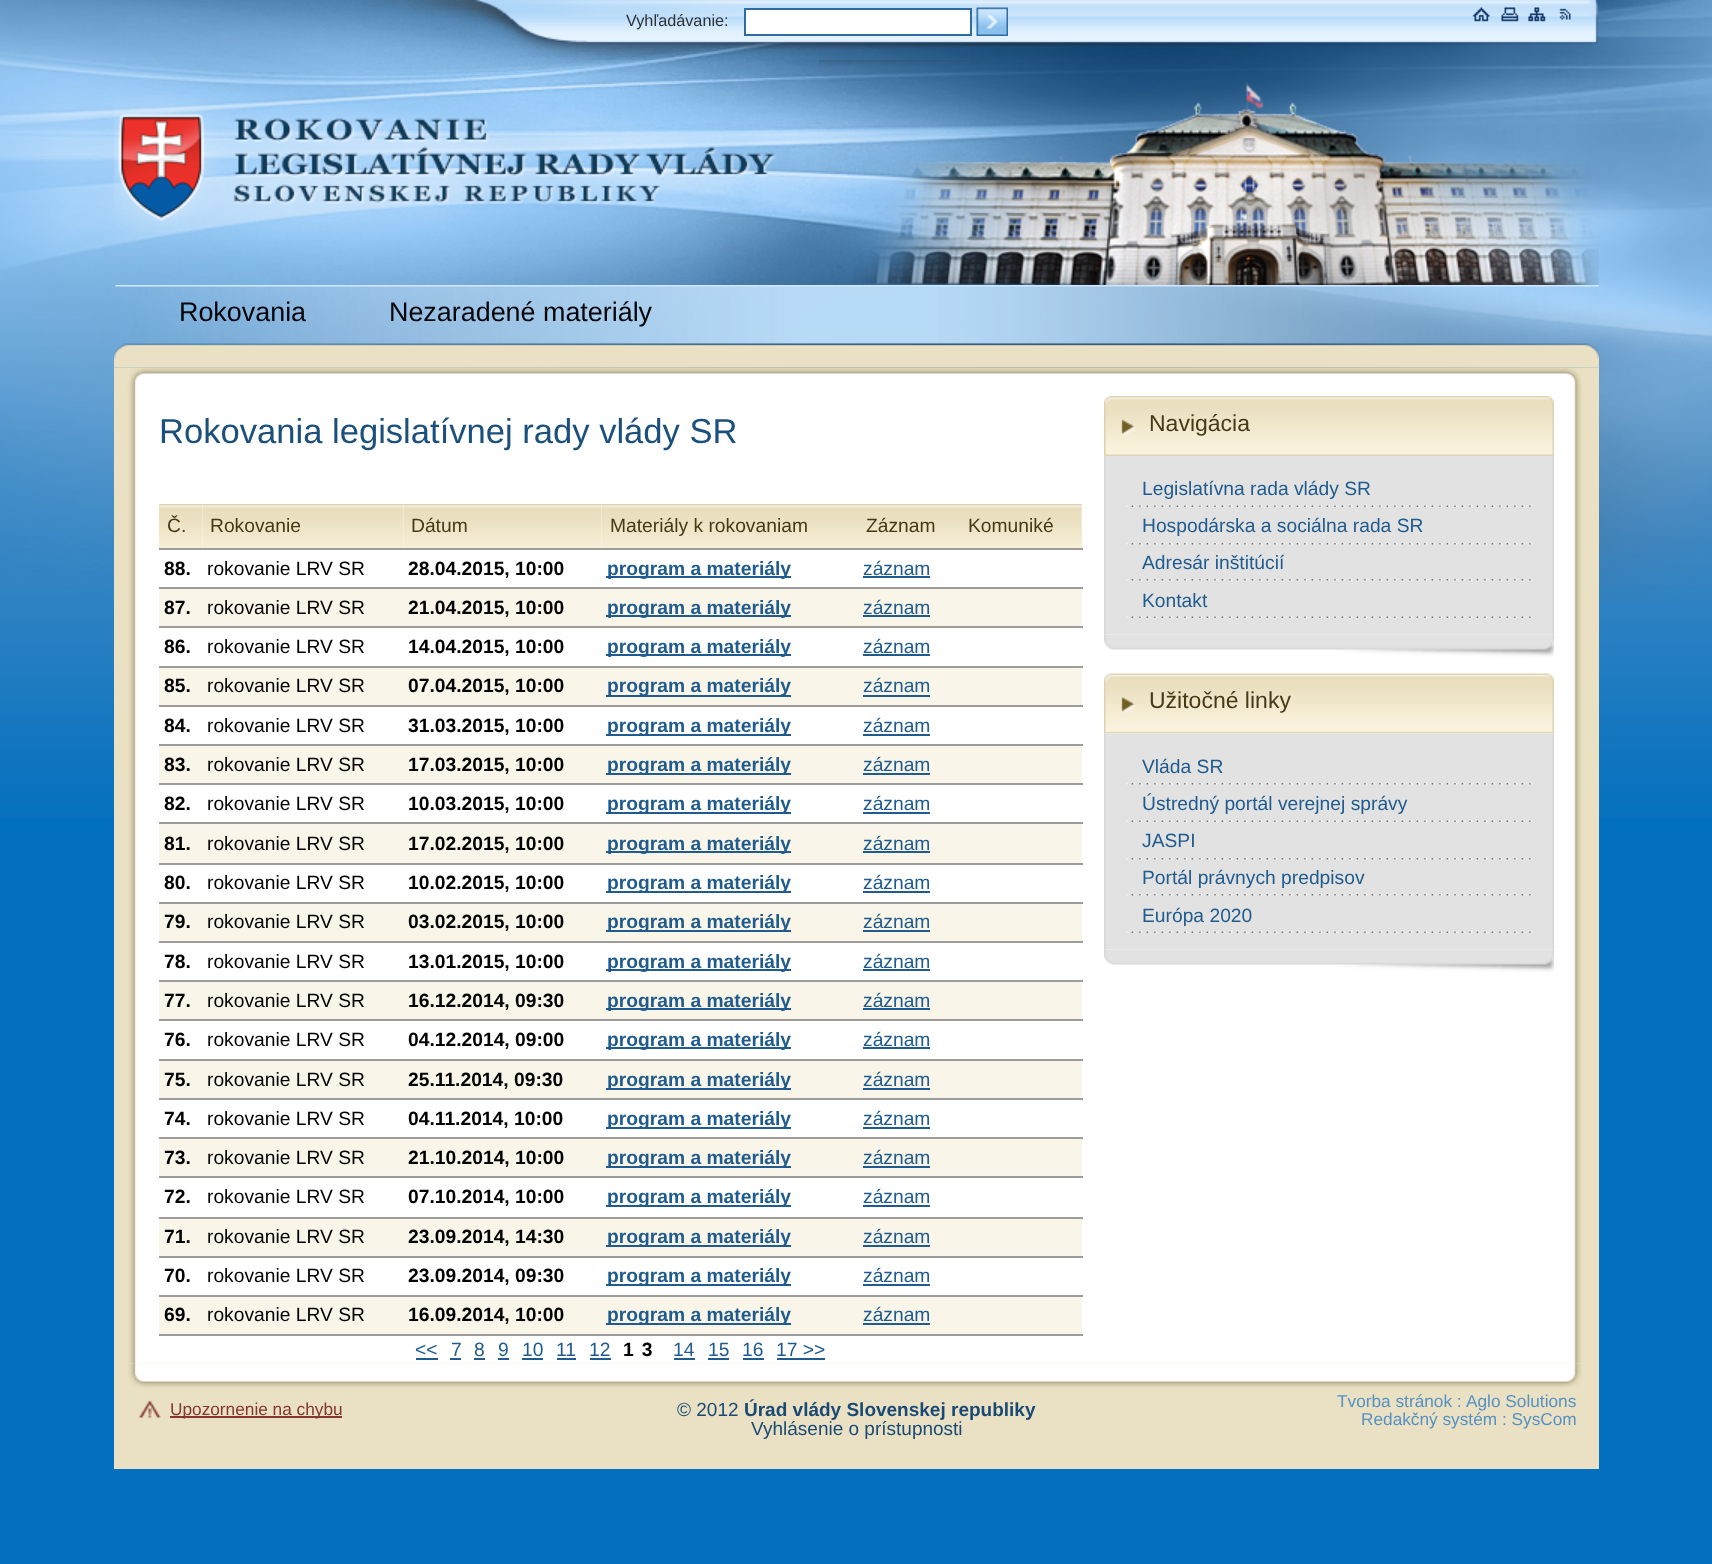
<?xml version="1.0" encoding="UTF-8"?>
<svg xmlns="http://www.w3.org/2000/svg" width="1712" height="1564">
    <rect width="100%" height="100%" fill="#026FBF"/>
    <image x="0" y="602" width="1712" height="216" href="img_01.png"/>
    <image x="0" y="0" width="1712" height="603" href="img_02.png"/>
    <image x="362" y="0" width="1237" height="60" href="img_03.png"/>
    <text x="626" y="26" font-family="Liberation Sans" font-size="16.25" fill="#303030">Vyhľadávanie:</text>
    <rect x="745" y="9" width="226" height="26" fill="#FFFFFF" stroke="#2E6CA1" stroke-width="2"/>
    <image x="976" y="7" width="32" height="29" href="img_04.png"/>
    <image x="1472" y="7" width="18" height="15" href="img_05.png"/>
    <image x="1501" y="7" width="18" height="15" href="img_06.png"/>
    <image x="1528" y="7" width="18" height="15" href="img_07.png"/>
    <image x="1559" y="8" width="12" height="12" href="img_08.png"/>
    <image x="114" y="95" width="663" height="137" href="img_09.png"/>
    <image x="819" y="60" width="780" height="225" href="img_10.png"/>
    <image x="114" y="367" width="1485" height="29" href="img_12.png"/>
    <image x="114" y="285" width="1485" height="83" href="img_11.png"/>
    <text x="179" y="321" font-family="Liberation Sans" font-size="26.9" fill="#00050A">Rokovania</text>
    <text x="389" y="321" font-family="Liberation Sans" font-size="26.9" fill="#00050A">Nezaradené materiály</text>
    <rect x="114" y="396" width="1485" height="1073" fill="#EAE1C4"/>
    <image x="128" y="396" width="1454" height="968" href="img_13.png"/>
    <text x="159" y="443" font-family="Liberation Sans" font-size="34.6" fill="#1C507C">Rokovania legislatívnej rady vlády SR</text>
    <image x="159" y="504" width="44" height="44" href="img_14.png"/>
    <text x="167" y="532" font-family="Liberation Sans" font-size="19.25" fill="#463A16">Č.</text>
    <image x="202" y="504" width="202" height="44" href="img_15.png"/>
    <text x="210" y="532" font-family="Liberation Sans" font-size="19.25" fill="#463A16">Rokovanie</text>
    <image x="403" y="504" width="199" height="44" href="img_16.png"/>
    <text x="411" y="532" font-family="Liberation Sans" font-size="19.25" fill="#463A16">Dátum</text>
    <image x="601" y="504" width="257" height="44" href="img_17.png"/>
    <text x="610" y="532" font-family="Liberation Sans" font-size="19.25" fill="#463A16">Materiály k rokovaniam</text>
    <image x="858" y="504" width="102" height="44" href="img_18.png"/>
    <text x="866" y="532" font-family="Liberation Sans" font-size="19.25" fill="#463A16">Záznam</text>
    <rect x="1081" y="504" width="1" height="44" fill="#FAF3DE"/>
    <image x="960" y="504" width="122" height="44" href="img_19.png"/>
    <text x="968" y="532" font-family="Liberation Sans" font-size="19.25" fill="#463A16">Komuniké</text>
    <rect x="159" y="548" width="924" height="2" fill="#9C9C9C"/>
    <text x="164" y="575" font-family="Liberation Sans" font-size="19.25" font-weight="700" fill="#000000">88.</text>
    <text x="207" y="575" font-family="Liberation Sans" font-size="19.25" fill="#000000">rokovanie LRV SR</text>
    <text x="408" y="575" font-family="Liberation Sans" font-size="19.25" font-weight="700" fill="#000000">28.04.2015, 10:00</text>
    <rect x="606" y="576" width="185" height="2" fill="#1F5B8E"/>
    <text x="607" y="575" font-family="Liberation Sans" font-size="19.25" font-weight="700" fill="#1F5B8E">program a materiály</text>
    <text x="863" y="575" font-family="Liberation Sans" font-size="19.25" fill="#1F5B8E">záznam</text>
    <rect x="863" y="576" width="67" height="2" fill="#1F5B8E"/>
    <rect x="159" y="587" width="924" height="2" fill="#9C9C9C"/>
    <rect x="159" y="589" width="923" height="37" fill="#F9F5E8"/>
    <text x="164" y="614" font-family="Liberation Sans" font-size="19.25" font-weight="700" fill="#000000">87.</text>
    <text x="207" y="614" font-family="Liberation Sans" font-size="19.25" fill="#000000">rokovanie LRV SR</text>
    <text x="408" y="614" font-family="Liberation Sans" font-size="19.25" font-weight="700" fill="#000000">21.04.2015, 10:00</text>
    <rect x="606" y="615" width="185" height="2" fill="#1F5B8E"/>
    <text x="607" y="614" font-family="Liberation Sans" font-size="19.25" font-weight="700" fill="#1F5B8E">program a materiály</text>
    <text x="863" y="614" font-family="Liberation Sans" font-size="19.25" fill="#1F5B8E">záznam</text>
    <rect x="863" y="615" width="67" height="2" fill="#1F5B8E"/>
    <rect x="159" y="626" width="924" height="2" fill="#9C9C9C"/>
    <text x="164" y="653" font-family="Liberation Sans" font-size="19.25" font-weight="700" fill="#000000">86.</text>
    <text x="207" y="653" font-family="Liberation Sans" font-size="19.25" fill="#000000">rokovanie LRV SR</text>
    <text x="408" y="653" font-family="Liberation Sans" font-size="19.25" font-weight="700" fill="#000000">14.04.2015, 10:00</text>
    <rect x="606" y="654" width="185" height="2" fill="#1F5B8E"/>
    <text x="607" y="653" font-family="Liberation Sans" font-size="19.25" font-weight="700" fill="#1F5B8E">program a materiály</text>
    <text x="863" y="653" font-family="Liberation Sans" font-size="19.25" fill="#1F5B8E">záznam</text>
    <rect x="863" y="654" width="67" height="2" fill="#1F5B8E"/>
    <rect x="159" y="666" width="924" height="2" fill="#9C9C9C"/>
    <rect x="159" y="668" width="923" height="37" fill="#F9F5E8"/>
    <text x="164" y="692" font-family="Liberation Sans" font-size="19.25" font-weight="700" fill="#000000">85.</text>
    <text x="207" y="692" font-family="Liberation Sans" font-size="19.25" fill="#000000">rokovanie LRV SR</text>
    <text x="408" y="692" font-family="Liberation Sans" font-size="19.25" font-weight="700" fill="#000000">07.04.2015, 10:00</text>
    <rect x="606" y="695" width="185" height="2" fill="#1F5B8E"/>
    <text x="607" y="692" font-family="Liberation Sans" font-size="19.25" font-weight="700" fill="#1F5B8E">program a materiály</text>
    <text x="863" y="692" font-family="Liberation Sans" font-size="19.25" fill="#1F5B8E">záznam</text>
    <rect x="863" y="695" width="67" height="2" fill="#1F5B8E"/>
    <rect x="159" y="705" width="924" height="2" fill="#9C9C9C"/>
    <text x="164" y="732" font-family="Liberation Sans" font-size="19.25" font-weight="700" fill="#000000">84.</text>
    <text x="207" y="732" font-family="Liberation Sans" font-size="19.25" fill="#000000">rokovanie LRV SR</text>
    <text x="408" y="732" font-family="Liberation Sans" font-size="19.25" font-weight="700" fill="#000000">31.03.2015, 10:00</text>
    <rect x="606" y="734" width="185" height="2" fill="#1F5B8E"/>
    <text x="607" y="732" font-family="Liberation Sans" font-size="19.25" font-weight="700" fill="#1F5B8E">program a materiály</text>
    <text x="863" y="732" font-family="Liberation Sans" font-size="19.25" fill="#1F5B8E">záznam</text>
    <rect x="863" y="734" width="67" height="2" fill="#1F5B8E"/>
    <rect x="159" y="744" width="924" height="2" fill="#9C9C9C"/>
    <rect x="159" y="746" width="923" height="37" fill="#F9F5E8"/>
    <text x="164" y="771" font-family="Liberation Sans" font-size="19.25" font-weight="700" fill="#000000">83.</text>
    <text x="207" y="771" font-family="Liberation Sans" font-size="19.25" fill="#000000">rokovanie LRV SR</text>
    <text x="408" y="771" font-family="Liberation Sans" font-size="19.25" font-weight="700" fill="#000000">17.03.2015, 10:00</text>
    <rect x="606" y="773" width="185" height="2" fill="#1F5B8E"/>
    <text x="607" y="771" font-family="Liberation Sans" font-size="19.25" font-weight="700" fill="#1F5B8E">program a materiály</text>
    <text x="863" y="771" font-family="Liberation Sans" font-size="19.25" fill="#1F5B8E">záznam</text>
    <rect x="863" y="773" width="67" height="2" fill="#1F5B8E"/>
    <rect x="159" y="783" width="924" height="2" fill="#9C9C9C"/>
    <text x="164" y="810" font-family="Liberation Sans" font-size="19.25" font-weight="700" fill="#000000">82.</text>
    <text x="207" y="810" font-family="Liberation Sans" font-size="19.25" fill="#000000">rokovanie LRV SR</text>
    <text x="408" y="810" font-family="Liberation Sans" font-size="19.25" font-weight="700" fill="#000000">10.03.2015, 10:00</text>
    <rect x="606" y="812" width="185" height="2" fill="#1F5B8E"/>
    <text x="607" y="810" font-family="Liberation Sans" font-size="19.25" font-weight="700" fill="#1F5B8E">program a materiály</text>
    <text x="863" y="810" font-family="Liberation Sans" font-size="19.25" fill="#1F5B8E">záznam</text>
    <rect x="863" y="812" width="67" height="2" fill="#1F5B8E"/>
    <rect x="159" y="822" width="924" height="2" fill="#9C9C9C"/>
    <rect x="159" y="824" width="923" height="39" fill="#F9F5E8"/>
    <text x="164" y="850" font-family="Liberation Sans" font-size="19.25" font-weight="700" fill="#000000">81.</text>
    <text x="207" y="850" font-family="Liberation Sans" font-size="19.25" fill="#000000">rokovanie LRV SR</text>
    <text x="408" y="850" font-family="Liberation Sans" font-size="19.25" font-weight="700" fill="#000000">17.02.2015, 10:00</text>
    <rect x="606" y="851" width="185" height="2" fill="#1F5B8E"/>
    <text x="607" y="850" font-family="Liberation Sans" font-size="19.25" font-weight="700" fill="#1F5B8E">program a materiály</text>
    <text x="863" y="850" font-family="Liberation Sans" font-size="19.25" fill="#1F5B8E">záznam</text>
    <rect x="863" y="851" width="67" height="2" fill="#1F5B8E"/>
    <rect x="159" y="863" width="924" height="2" fill="#9C9C9C"/>
    <text x="164" y="889" font-family="Liberation Sans" font-size="19.25" font-weight="700" fill="#000000">80.</text>
    <text x="207" y="889" font-family="Liberation Sans" font-size="19.25" fill="#000000">rokovanie LRV SR</text>
    <text x="408" y="889" font-family="Liberation Sans" font-size="19.25" font-weight="700" fill="#000000">10.02.2015, 10:00</text>
    <rect x="606" y="891" width="185" height="2" fill="#1F5B8E"/>
    <text x="607" y="889" font-family="Liberation Sans" font-size="19.25" font-weight="700" fill="#1F5B8E">program a materiály</text>
    <text x="863" y="889" font-family="Liberation Sans" font-size="19.25" fill="#1F5B8E">záznam</text>
    <rect x="863" y="891" width="67" height="2" fill="#1F5B8E"/>
    <rect x="159" y="902" width="924" height="2" fill="#9C9C9C"/>
    <rect x="159" y="904" width="923" height="37" fill="#F9F5E8"/>
    <text x="164" y="928" font-family="Liberation Sans" font-size="19.25" font-weight="700" fill="#000000">79.</text>
    <text x="207" y="928" font-family="Liberation Sans" font-size="19.25" fill="#000000">rokovanie LRV SR</text>
    <text x="408" y="928" font-family="Liberation Sans" font-size="19.25" font-weight="700" fill="#000000">03.02.2015, 10:00</text>
    <rect x="606" y="930" width="185" height="2" fill="#1F5B8E"/>
    <text x="607" y="928" font-family="Liberation Sans" font-size="19.25" font-weight="700" fill="#1F5B8E">program a materiály</text>
    <text x="863" y="928" font-family="Liberation Sans" font-size="19.25" fill="#1F5B8E">záznam</text>
    <rect x="863" y="930" width="67" height="2" fill="#1F5B8E"/>
    <rect x="159" y="941" width="924" height="2" fill="#9C9C9C"/>
    <text x="164" y="968" font-family="Liberation Sans" font-size="19.25" font-weight="700" fill="#000000">78.</text>
    <text x="207" y="968" font-family="Liberation Sans" font-size="19.25" fill="#000000">rokovanie LRV SR</text>
    <text x="408" y="968" font-family="Liberation Sans" font-size="19.25" font-weight="700" fill="#000000">13.01.2015, 10:00</text>
    <rect x="606" y="969" width="185" height="2" fill="#1F5B8E"/>
    <text x="607" y="968" font-family="Liberation Sans" font-size="19.25" font-weight="700" fill="#1F5B8E">program a materiály</text>
    <text x="863" y="968" font-family="Liberation Sans" font-size="19.25" fill="#1F5B8E">záznam</text>
    <rect x="863" y="969" width="67" height="2" fill="#1F5B8E"/>
    <rect x="159" y="980" width="924" height="2" fill="#9C9C9C"/>
    <rect x="159" y="982" width="923" height="37" fill="#F9F5E8"/>
    <text x="164" y="1007" font-family="Liberation Sans" font-size="19.25" font-weight="700" fill="#000000">77.</text>
    <text x="207" y="1007" font-family="Liberation Sans" font-size="19.25" fill="#000000">rokovanie LRV SR</text>
    <text x="408" y="1007" font-family="Liberation Sans" font-size="19.25" font-weight="700" fill="#000000">16.12.2014, 09:30</text>
    <rect x="606" y="1008" width="185" height="2" fill="#1F5B8E"/>
    <text x="607" y="1007" font-family="Liberation Sans" font-size="19.25" font-weight="700" fill="#1F5B8E">program a materiály</text>
    <text x="863" y="1007" font-family="Liberation Sans" font-size="19.25" fill="#1F5B8E">záznam</text>
    <rect x="863" y="1008" width="67" height="2" fill="#1F5B8E"/>
    <rect x="159" y="1019" width="924" height="2" fill="#9C9C9C"/>
    <text x="164" y="1046" font-family="Liberation Sans" font-size="19.25" font-weight="700" fill="#000000">76.</text>
    <text x="207" y="1046" font-family="Liberation Sans" font-size="19.25" fill="#000000">rokovanie LRV SR</text>
    <text x="408" y="1046" font-family="Liberation Sans" font-size="19.25" font-weight="700" fill="#000000">04.12.2014, 09:00</text>
    <rect x="606" y="1047" width="185" height="2" fill="#1F5B8E"/>
    <text x="607" y="1046" font-family="Liberation Sans" font-size="19.25" font-weight="700" fill="#1F5B8E">program a materiály</text>
    <text x="863" y="1046" font-family="Liberation Sans" font-size="19.25" fill="#1F5B8E">záznam</text>
    <rect x="863" y="1047" width="67" height="2" fill="#1F5B8E"/>
    <rect x="159" y="1059" width="924" height="2" fill="#9C9C9C"/>
    <rect x="159" y="1061" width="923" height="37" fill="#F9F5E8"/>
    <text x="164" y="1086" font-family="Liberation Sans" font-size="19.25" font-weight="700" fill="#000000">75.</text>
    <text x="207" y="1086" font-family="Liberation Sans" font-size="19.25" fill="#000000">rokovanie LRV SR</text>
    <text x="408" y="1086" font-family="Liberation Sans" font-size="19.25" font-weight="700" fill="#000000">25.11.2014, 09:30</text>
    <rect x="606" y="1088" width="185" height="2" fill="#1F5B8E"/>
    <text x="607" y="1086" font-family="Liberation Sans" font-size="19.25" font-weight="700" fill="#1F5B8E">program a materiály</text>
    <text x="863" y="1086" font-family="Liberation Sans" font-size="19.25" fill="#1F5B8E">záznam</text>
    <rect x="863" y="1088" width="67" height="2" fill="#1F5B8E"/>
    <rect x="159" y="1098" width="924" height="2" fill="#9C9C9C"/>
    <text x="164" y="1125" font-family="Liberation Sans" font-size="19.25" font-weight="700" fill="#000000">74.</text>
    <text x="207" y="1125" font-family="Liberation Sans" font-size="19.25" fill="#000000">rokovanie LRV SR</text>
    <text x="408" y="1125" font-family="Liberation Sans" font-size="19.25" font-weight="700" fill="#000000">04.11.2014, 10:00</text>
    <rect x="606" y="1127" width="185" height="2" fill="#1F5B8E"/>
    <text x="607" y="1125" font-family="Liberation Sans" font-size="19.25" font-weight="700" fill="#1F5B8E">program a materiály</text>
    <text x="863" y="1125" font-family="Liberation Sans" font-size="19.25" fill="#1F5B8E">záznam</text>
    <rect x="863" y="1127" width="67" height="2" fill="#1F5B8E"/>
    <rect x="159" y="1137" width="924" height="2" fill="#9C9C9C"/>
    <rect x="159" y="1139" width="923" height="37" fill="#F9F5E8"/>
    <text x="164" y="1164" font-family="Liberation Sans" font-size="19.25" font-weight="700" fill="#000000">73.</text>
    <text x="207" y="1164" font-family="Liberation Sans" font-size="19.25" fill="#000000">rokovanie LRV SR</text>
    <text x="408" y="1164" font-family="Liberation Sans" font-size="19.25" font-weight="700" fill="#000000">21.10.2014, 10:00</text>
    <rect x="606" y="1166" width="185" height="2" fill="#1F5B8E"/>
    <text x="607" y="1164" font-family="Liberation Sans" font-size="19.25" font-weight="700" fill="#1F5B8E">program a materiály</text>
    <text x="863" y="1164" font-family="Liberation Sans" font-size="19.25" fill="#1F5B8E">záznam</text>
    <rect x="863" y="1166" width="67" height="2" fill="#1F5B8E"/>
    <rect x="159" y="1176" width="924" height="2" fill="#9C9C9C"/>
    <text x="164" y="1203" font-family="Liberation Sans" font-size="19.25" font-weight="700" fill="#000000">72.</text>
    <text x="207" y="1203" font-family="Liberation Sans" font-size="19.25" fill="#000000">rokovanie LRV SR</text>
    <text x="408" y="1203" font-family="Liberation Sans" font-size="19.25" font-weight="700" fill="#000000">07.10.2014, 10:00</text>
    <rect x="606" y="1205" width="185" height="2" fill="#1F5B8E"/>
    <text x="607" y="1203" font-family="Liberation Sans" font-size="19.25" font-weight="700" fill="#1F5B8E">program a materiály</text>
    <text x="863" y="1203" font-family="Liberation Sans" font-size="19.25" fill="#1F5B8E">záznam</text>
    <rect x="863" y="1205" width="67" height="2" fill="#1F5B8E"/>
    <rect x="159" y="1217" width="924" height="2" fill="#9C9C9C"/>
    <rect x="159" y="1219" width="923" height="37" fill="#F9F5E8"/>
    <text x="164" y="1243" font-family="Liberation Sans" font-size="19.25" font-weight="700" fill="#000000">71.</text>
    <text x="207" y="1243" font-family="Liberation Sans" font-size="19.25" fill="#000000">rokovanie LRV SR</text>
    <text x="408" y="1243" font-family="Liberation Sans" font-size="19.25" font-weight="700" fill="#000000">23.09.2014, 14:30</text>
    <rect x="606" y="1245" width="185" height="2" fill="#1F5B8E"/>
    <text x="607" y="1243" font-family="Liberation Sans" font-size="19.25" font-weight="700" fill="#1F5B8E">program a materiály</text>
    <text x="863" y="1243" font-family="Liberation Sans" font-size="19.25" fill="#1F5B8E">záznam</text>
    <rect x="863" y="1245" width="67" height="2" fill="#1F5B8E"/>
    <rect x="159" y="1256" width="924" height="2" fill="#9C9C9C"/>
    <text x="164" y="1282" font-family="Liberation Sans" font-size="19.25" font-weight="700" fill="#000000">70.</text>
    <text x="207" y="1282" font-family="Liberation Sans" font-size="19.25" fill="#000000">rokovanie LRV SR</text>
    <text x="408" y="1282" font-family="Liberation Sans" font-size="19.25" font-weight="700" fill="#000000">23.09.2014, 09:30</text>
    <rect x="606" y="1284" width="185" height="2" fill="#1F5B8E"/>
    <text x="607" y="1282" font-family="Liberation Sans" font-size="19.25" font-weight="700" fill="#1F5B8E">program a materiály</text>
    <text x="863" y="1282" font-family="Liberation Sans" font-size="19.25" fill="#1F5B8E">záznam</text>
    <rect x="863" y="1284" width="67" height="2" fill="#1F5B8E"/>
    <rect x="159" y="1295" width="924" height="2" fill="#9C9C9C"/>
    <rect x="159" y="1334" width="924" height="2" fill="#9C9C9C"/>
    <rect x="159" y="1297" width="923" height="37" fill="#F9F5E8"/>
    <text x="164" y="1321" font-family="Liberation Sans" font-size="19.25" font-weight="700" fill="#000000">69.</text>
    <text x="207" y="1321" font-family="Liberation Sans" font-size="19.25" fill="#000000">rokovanie LRV SR</text>
    <text x="408" y="1321" font-family="Liberation Sans" font-size="19.25" font-weight="700" fill="#000000">16.09.2014, 10:00</text>
    <rect x="606" y="1323" width="185" height="2" fill="#1F5B8E"/>
    <text x="607" y="1321" font-family="Liberation Sans" font-size="19.25" font-weight="700" fill="#1F5B8E">program a materiály</text>
    <text x="863" y="1321" font-family="Liberation Sans" font-size="19.25" fill="#1F5B8E">záznam</text>
    <rect x="863" y="1323" width="67" height="2" fill="#1F5B8E"/>
    <text x="415" y="1356" font-family="Liberation Sans" font-size="19.25" fill="#1F5B8E">&lt;&lt;</text>
    <rect x="416" y="1358" width="22" height="2" fill="#1F5B8E"/>
    <text x="451" y="1356" font-family="Liberation Sans" font-size="19.25" fill="#1F5B8E">7</text>
    <rect x="450" y="1358" width="11" height="2" fill="#1F5B8E"/>
    <text x="474" y="1356" font-family="Liberation Sans" font-size="19.25" fill="#1F5B8E">8</text>
    <rect x="474" y="1358" width="11" height="2" fill="#1F5B8E"/>
    <text x="498" y="1356" font-family="Liberation Sans" font-size="19.25" fill="#1F5B8E">9</text>
    <rect x="498" y="1358" width="11" height="2" fill="#1F5B8E"/>
    <text x="522" y="1356" font-family="Liberation Sans" font-size="19.25" fill="#1F5B8E">10</text>
    <rect x="522" y="1358" width="21" height="2" fill="#1F5B8E"/>
    <text x="556" y="1356" font-family="Liberation Sans" font-size="19.25" fill="#1F5B8E">11</text>
    <rect x="557" y="1358" width="19" height="2" fill="#1F5B8E"/>
    <text x="589" y="1356" font-family="Liberation Sans" font-size="19.25" fill="#1F5B8E">12</text>
    <rect x="590" y="1358" width="21" height="2" fill="#1F5B8E"/>
    <text x="623" y="1356" font-family="Liberation Sans" font-size="19.25" font-weight="700" letter-spacing="8" fill="#000000">13</text>
    <text x="673" y="1356" font-family="Liberation Sans" font-size="19.25" fill="#1F5B8E">14</text>
    <rect x="674" y="1358" width="21" height="2" fill="#1F5B8E"/>
    <text x="708" y="1356" font-family="Liberation Sans" font-size="19.25" fill="#1F5B8E">15</text>
    <rect x="708" y="1358" width="21" height="2" fill="#1F5B8E"/>
    <text x="742" y="1356" font-family="Liberation Sans" font-size="19.25" fill="#1F5B8E">16</text>
    <rect x="743" y="1358" width="21" height="2" fill="#1F5B8E"/>
    <text x="776" y="1356" font-family="Liberation Sans" font-size="19.25" fill="#1F5B8E">17 &gt;&gt;</text>
    <rect x="777" y="1358" width="48" height="2" fill="#1F5B8E"/>
    <image x="1104" y="396" width="450" height="60" href="img_20.png"/>
    <text x="1149" y="431" font-family="Liberation Sans" font-size="23" fill="#463A16">Navigácia</text>
    <image x="1104" y="456" width="450" height="179" href="img_21.png"/>
    <image x="1126" y="505" width="406" height="2" href="img_22.png"/>
    <text x="1142" y="495" font-family="Liberation Sans" font-size="19.25" fill="#1F5B8E">Legislatívna rada vlády SR</text>
    <image x="1126" y="543" width="406" height="2" href="img_23.png"/>
    <text x="1142" y="532" font-family="Liberation Sans" font-size="19.25" fill="#1F5B8E">Hospodárska a sociálna rada SR</text>
    <image x="1126" y="579" width="406" height="2" href="img_23.png"/>
    <text x="1142" y="569" font-family="Liberation Sans" font-size="19.25" fill="#1F5B8E">Adresár inštitúcií</text>
    <image x="1126" y="616" width="406" height="2" href="img_22.png"/>
    <text x="1142" y="607" font-family="Liberation Sans" font-size="19.25" fill="#1F5B8E">Kontakt</text>
    <image x="1104" y="634" width="450" height="23" href="img_24.png"/>
    <image x="1104" y="673" width="450" height="61" href="img_25.png"/>
    <text x="1149" y="708" font-family="Liberation Sans" font-size="23" fill="#463A16">Užitočné linky</text>
    <image x="1104" y="733" width="450" height="217" href="img_26.png"/>
    <image x="1126" y="783" width="406" height="2" href="img_23.png"/>
    <text x="1142" y="773" font-family="Liberation Sans" font-size="19.25" fill="#1F5B8E">Vláda SR</text>
    <image x="1126" y="820" width="406" height="2" href="img_22.png"/>
    <text x="1142" y="810" font-family="Liberation Sans" font-size="19.25" fill="#1F5B8E">Ústredný portál verejnej správy</text>
    <image x="1126" y="858" width="406" height="2" href="img_23.png"/>
    <text x="1142" y="847" font-family="Liberation Sans" font-size="19.25" fill="#1F5B8E">JASPI</text>
    <image x="1126" y="894" width="406" height="2" href="img_23.png"/>
    <text x="1142" y="884" font-family="Liberation Sans" font-size="19.25" fill="#1F5B8E">Portál právnych predpisov</text>
    <image x="1126" y="931" width="406" height="2" href="img_22.png"/>
    <text x="1142" y="922" font-family="Liberation Sans" font-size="19.25" fill="#1F5B8E">Európa 2020</text>
    <image x="1104" y="949" width="450" height="23" href="img_24.png"/>
    <image x="128" y="1363" width="1454" height="25" href="img_27.png"/>
    <image x="139" y="1400" width="22" height="18" href="img_28.png"/>
    <rect x="170" y="1416" width="172" height="2" fill="#833632"/>
    <text x="170" y="1415" font-family="Liberation Sans" font-size="17.25" fill="#833632">Upozornenie na chybu</text>
    <text x="677" y="1416" font-family="Liberation Sans" font-size="19" fill="#1A4A74">© 2012</text>
    <text x="744" y="1416" font-family="Liberation Sans" font-size="19" font-weight="700" fill="#1A4A74">Úrad vlády Slovenskej republiky</text>
    <text x="751" y="1435" font-family="Liberation Sans" font-size="19" fill="#1A4A74">Vyhlásenie o prístupnosti</text>
    <text x="1337" y="1407" font-family="Liberation Sans" font-size="17.25" fill="#5692C1">Tvorba stránok :</text>
    <text x="1466" y="1407" font-family="Liberation Sans" font-size="17.25" fill="#5692C1">Aglo Solutions</text>
    <text x="1361" y="1425" font-family="Liberation Sans" font-size="17.25" fill="#5692C1">Redakčný systém : SysCom</text>
</svg>
